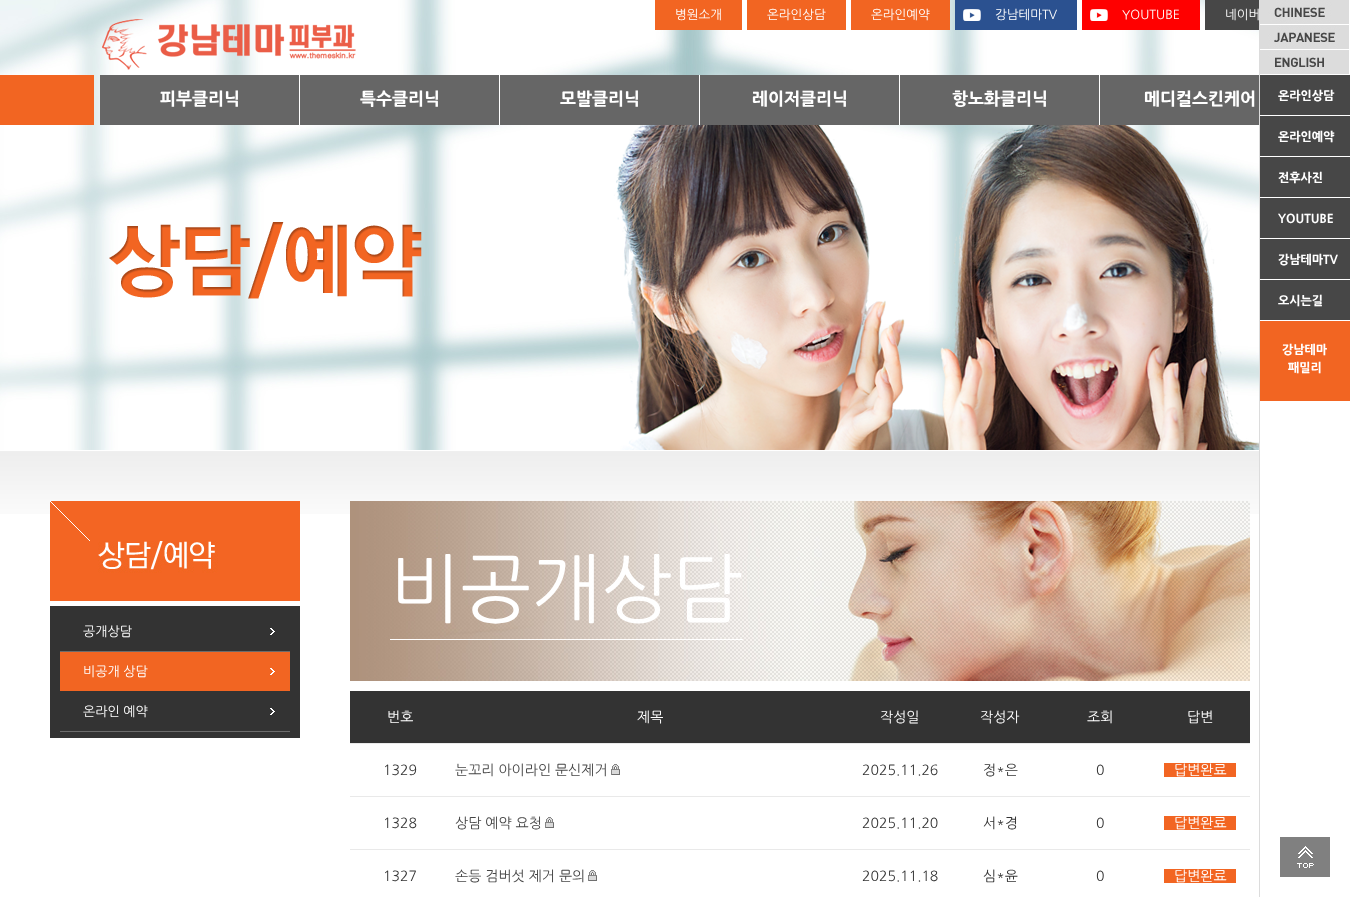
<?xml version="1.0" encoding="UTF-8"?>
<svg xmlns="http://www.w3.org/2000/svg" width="1350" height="897">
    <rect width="100%" height="100%" fill="#FFFFFF"/>
    <image x="0" y="0" width="1259" height="450" href="img_01.png"/>
    <image x="109" y="125" width="1150" height="325" href="img_02.png"/>
    <rect x="655" y="0" width="87" height="30" fill="#F26522"/>
    <text x="675" y="19" font-family="NanumGothic" font-size="12.5" fill="#FFFFFF">병원소개</text>
    <rect x="747" y="0" width="99" height="30" fill="#F26522"/>
    <text x="767" y="19" font-family="NanumGothic" font-size="12.5" fill="#FFFFFF">온라인상담</text>
    <rect x="851" y="0" width="99" height="30" fill="#F26522"/>
    <text x="871" y="19" font-family="NanumGothic" font-size="12.5" fill="#FFFFFF">온라인예약</text>
    <rect x="955" y="0" width="122" height="30" fill="#2B5190"/>
    <image x="963" y="9" width="18" height="12" href="img_03.png"/>
    <text x="995" y="19" font-family="NanumGothic" font-size="12.5" fill="#FFFFFF">강남테마TV</text>
    <rect x="1082" y="0" width="118" height="30" fill="#FF0000"/>
    <image x="1090" y="9" width="18" height="12" href="img_04.png"/>
    <text x="1122" y="19" font-family="NanumGothic" font-size="12.5" fill="#FFFFFF">YOUTUBE</text>
    <rect x="1205" y="0" width="54" height="30" fill="#474747"/>
    <text x="1225" y="19" font-family="NanumGothic" font-size="12.5" fill="#FFFFFF">네이버</text>
    <image x="102" y="19" width="254" height="51" href="img_05.png"/>
    <image x="0" y="75" width="94" height="50" href="img_06.png"/>
    <rect x="100" y="75" width="199" height="50" fill="#666666"/>
    <text x="160" y="105" font-family="NanumGothic" font-size="17" font-weight="800" fill="#FFFFFF">피부클리닉</text>
    <rect x="300" y="75" width="199" height="50" fill="#666666"/>
    <rect x="499" y="75" width="1" height="50" fill="#FFFFFF"/>
    <text x="360" y="105" font-family="NanumGothic" font-size="17" font-weight="800" fill="#FFFFFF">특수클리닉</text>
    <rect x="500" y="75" width="199" height="50" fill="#666666"/>
    <rect x="699" y="75" width="1" height="50" fill="#FFFFFF"/>
    <text x="560" y="105" font-family="NanumGothic" font-size="17" font-weight="800" fill="#FFFFFF">모발클리닉</text>
    <rect x="700" y="75" width="199" height="50" fill="#666666"/>
    <rect x="899" y="84" width="1" height="41" fill="#FFFFFF"/>
    <text x="752" y="105" font-family="NanumGothic" font-size="17" font-weight="800" fill="#FFFFFF">레이저클리닉</text>
    <rect x="900" y="75" width="199" height="50" fill="#666666"/>
    <text x="952" y="105" font-family="NanumGothic" font-size="17" font-weight="800" fill="#FFFFFF">항노화클리닉</text>
    <rect x="1100" y="75" width="159" height="50" fill="#666666"/>
    <text x="1144" y="105" font-family="NanumGothic" font-size="17" font-weight="800" fill="#FFFFFF">메디컬스킨케어</text>
    <rect x="1259" y="0" width="1" height="897" fill="#DCDCDC"/>
    <image x="1260" y="0" width="89" height="24" href="img_07.png"/>
    <image x="1260" y="25" width="89" height="24" href="img_08.png"/>
    <image x="1260" y="50" width="89" height="24" href="img_09.png"/>
    <rect x="1260" y="75" width="90" height="40" fill="#474747"/>
    <text x="1278" y="100" font-family="NanumGothic" font-size="12" font-weight="800" fill="#FFFFFF">온라인상담</text>
    <rect x="1260" y="116" width="90" height="40" fill="#474747"/>
    <text x="1278" y="141" font-family="NanumGothic" font-size="12" font-weight="800" fill="#FFFFFF">온라인예약</text>
    <rect x="1260" y="157" width="90" height="40" fill="#474747"/>
    <text x="1278" y="182" font-family="NanumGothic" font-size="12" font-weight="800" fill="#FFFFFF">전후사진</text>
    <rect x="1260" y="198" width="90" height="40" fill="#474747"/>
    <text x="1278" y="223" font-family="NanumGothic" font-size="12" font-weight="800" fill="#FFFFFF">YOUTUBE</text>
    <rect x="1260" y="239" width="90" height="40" fill="#474747"/>
    <text x="1278" y="264" font-family="NanumGothic" font-size="12" font-weight="800" fill="#FFFFFF">강남테마TV</text>
    <rect x="1260" y="280" width="90" height="40" fill="#474747"/>
    <text x="1278" y="305" font-family="NanumGothic" font-size="12" font-weight="800" fill="#FFFFFF">오시는길</text>
    <rect x="1260" y="321" width="90" height="80" fill="#F26522"/>
    <text x="1282" y="354" font-family="NanumGothic" font-size="12" font-weight="800" fill="#FFFFFF">강남테마</text>
    <text x="1288" y="372" font-family="NanumGothic" font-size="12" font-weight="800" fill="#FFFFFF">패밀리</text>
    <image x="1280" y="837" width="50" height="40" href="img_10.png"/>
    <image x="0" y="451" width="1259" height="63" href="img_11.png"/>
    <image x="50" y="501" width="250" height="100" href="img_12.png"/>
    <rect x="50" y="606" width="250" height="132" fill="#333333"/>
    <rect x="60" y="651" width="230" height="1" fill="#6C6C6C"/>
    <image x="270" y="628" width="5" height="7" href="img_13.png"/>
    <text x="83" y="636" font-family="NanumGothic" font-size="13" fill="#FFFFFF">공개상담</text>
    <rect x="60" y="652" width="230" height="39" fill="#F26522"/>
    <image x="270" y="668" width="5" height="7" href="img_14.png"/>
    <text x="83" y="676" font-family="NanumGothic" font-size="13" fill="#FFFFFF">비공개 상담</text>
    <rect x="60" y="731" width="230" height="1" fill="#6C6C6C"/>
    <image x="270" y="708" width="5" height="7" href="img_13.png"/>
    <text x="83" y="716" font-family="NanumGothic" font-size="13" fill="#FFFFFF">온라인 예약</text>
    <image x="350" y="501" width="900" height="180" href="img_15.png"/>
    <rect x="390" y="639" width="353" height="1" fill="#FFFFFF"/>
    <text x="390" y="616" font-family="NanumGothic" font-size="75" fill="#FFFFFF">비공개상담</text>
    <rect x="350" y="691" width="900" height="52" fill="#333333"/>
    <rect x="350" y="743" width="900" height="1" fill="#E9E9E9"/>
    <text x="387" y="722" font-family="NanumGothic" font-size="14" fill="#FFFFFF">번호</text>
    <text x="637" y="722" font-family="NanumGothic" font-size="14" fill="#FFFFFF">제목</text>
    <text x="880" y="722" font-family="NanumGothic" font-size="14" fill="#FFFFFF">작성일</text>
    <text x="980" y="722" font-family="NanumGothic" font-size="14" fill="#FFFFFF">작성자</text>
    <text x="1087" y="722" font-family="NanumGothic" font-size="14" fill="#FFFFFF">조회</text>
    <text x="1187" y="722" font-family="NanumGothic" font-size="14" fill="#FFFFFF">답변</text>
    <rect x="350" y="796" width="900" height="1" fill="#E9E9E9"/>
    <text x="383" y="775" font-family="NanumGothic" font-size="14" fill="#333333">1329</text>
    <text x="455" y="775" font-family="NanumGothic" font-size="14" fill="#474747">눈꼬리 아이라인 문신제거</text>
    <image x="611" y="764" width="9" height="11" href="img_16.png"/>
    <text x="862" y="775" font-family="NanumGothic" font-size="14" fill="#333333">2025.11.26</text>
    <text x="983" y="775" font-family="NanumGothic" font-size="14" fill="#333333">정*은</text>
    <text x="1096" y="775" font-family="NanumGothic" font-size="14" fill="#333333">0</text>
    <rect x="1164" y="763" width="72" height="14" fill="#F26522"/>
    <text x="1174" y="775" font-family="NanumGothic" font-size="14" fill="#FFFFFF">답변완료</text>
    <rect x="350" y="849" width="900" height="1" fill="#E9E9E9"/>
    <text x="383" y="828" font-family="NanumGothic" font-size="14" fill="#333333">1328</text>
    <text x="455" y="828" font-family="NanumGothic" font-size="14" fill="#474747">상담 예약 요청</text>
    <image x="545" y="817" width="9" height="11" href="img_16.png"/>
    <text x="862" y="828" font-family="NanumGothic" font-size="14" fill="#333333">2025.11.20</text>
    <text x="983" y="828" font-family="NanumGothic" font-size="14" fill="#333333">서*경</text>
    <text x="1096" y="828" font-family="NanumGothic" font-size="14" fill="#333333">0</text>
    <rect x="1164" y="816" width="72" height="14" fill="#F26522"/>
    <text x="1174" y="828" font-family="NanumGothic" font-size="14" fill="#FFFFFF">답변완료</text>
    <text x="383" y="881" font-family="NanumGothic" font-size="14" fill="#333333">1327</text>
    <text x="455" y="881" font-family="NanumGothic" font-size="14" fill="#474747">손등 검버섯 제거 문의</text>
    <image x="588" y="870" width="9" height="11" href="img_16.png"/>
    <text x="862" y="881" font-family="NanumGothic" font-size="14" fill="#333333">2025.11.18</text>
    <text x="983" y="881" font-family="NanumGothic" font-size="14" fill="#333333">심*윤</text>
    <text x="1096" y="881" font-family="NanumGothic" font-size="14" fill="#333333">0</text>
    <rect x="1164" y="869" width="72" height="14" fill="#F26522"/>
    <text x="1174" y="881" font-family="NanumGothic" font-size="14" fill="#FFFFFF">답변완료</text>
</svg>
